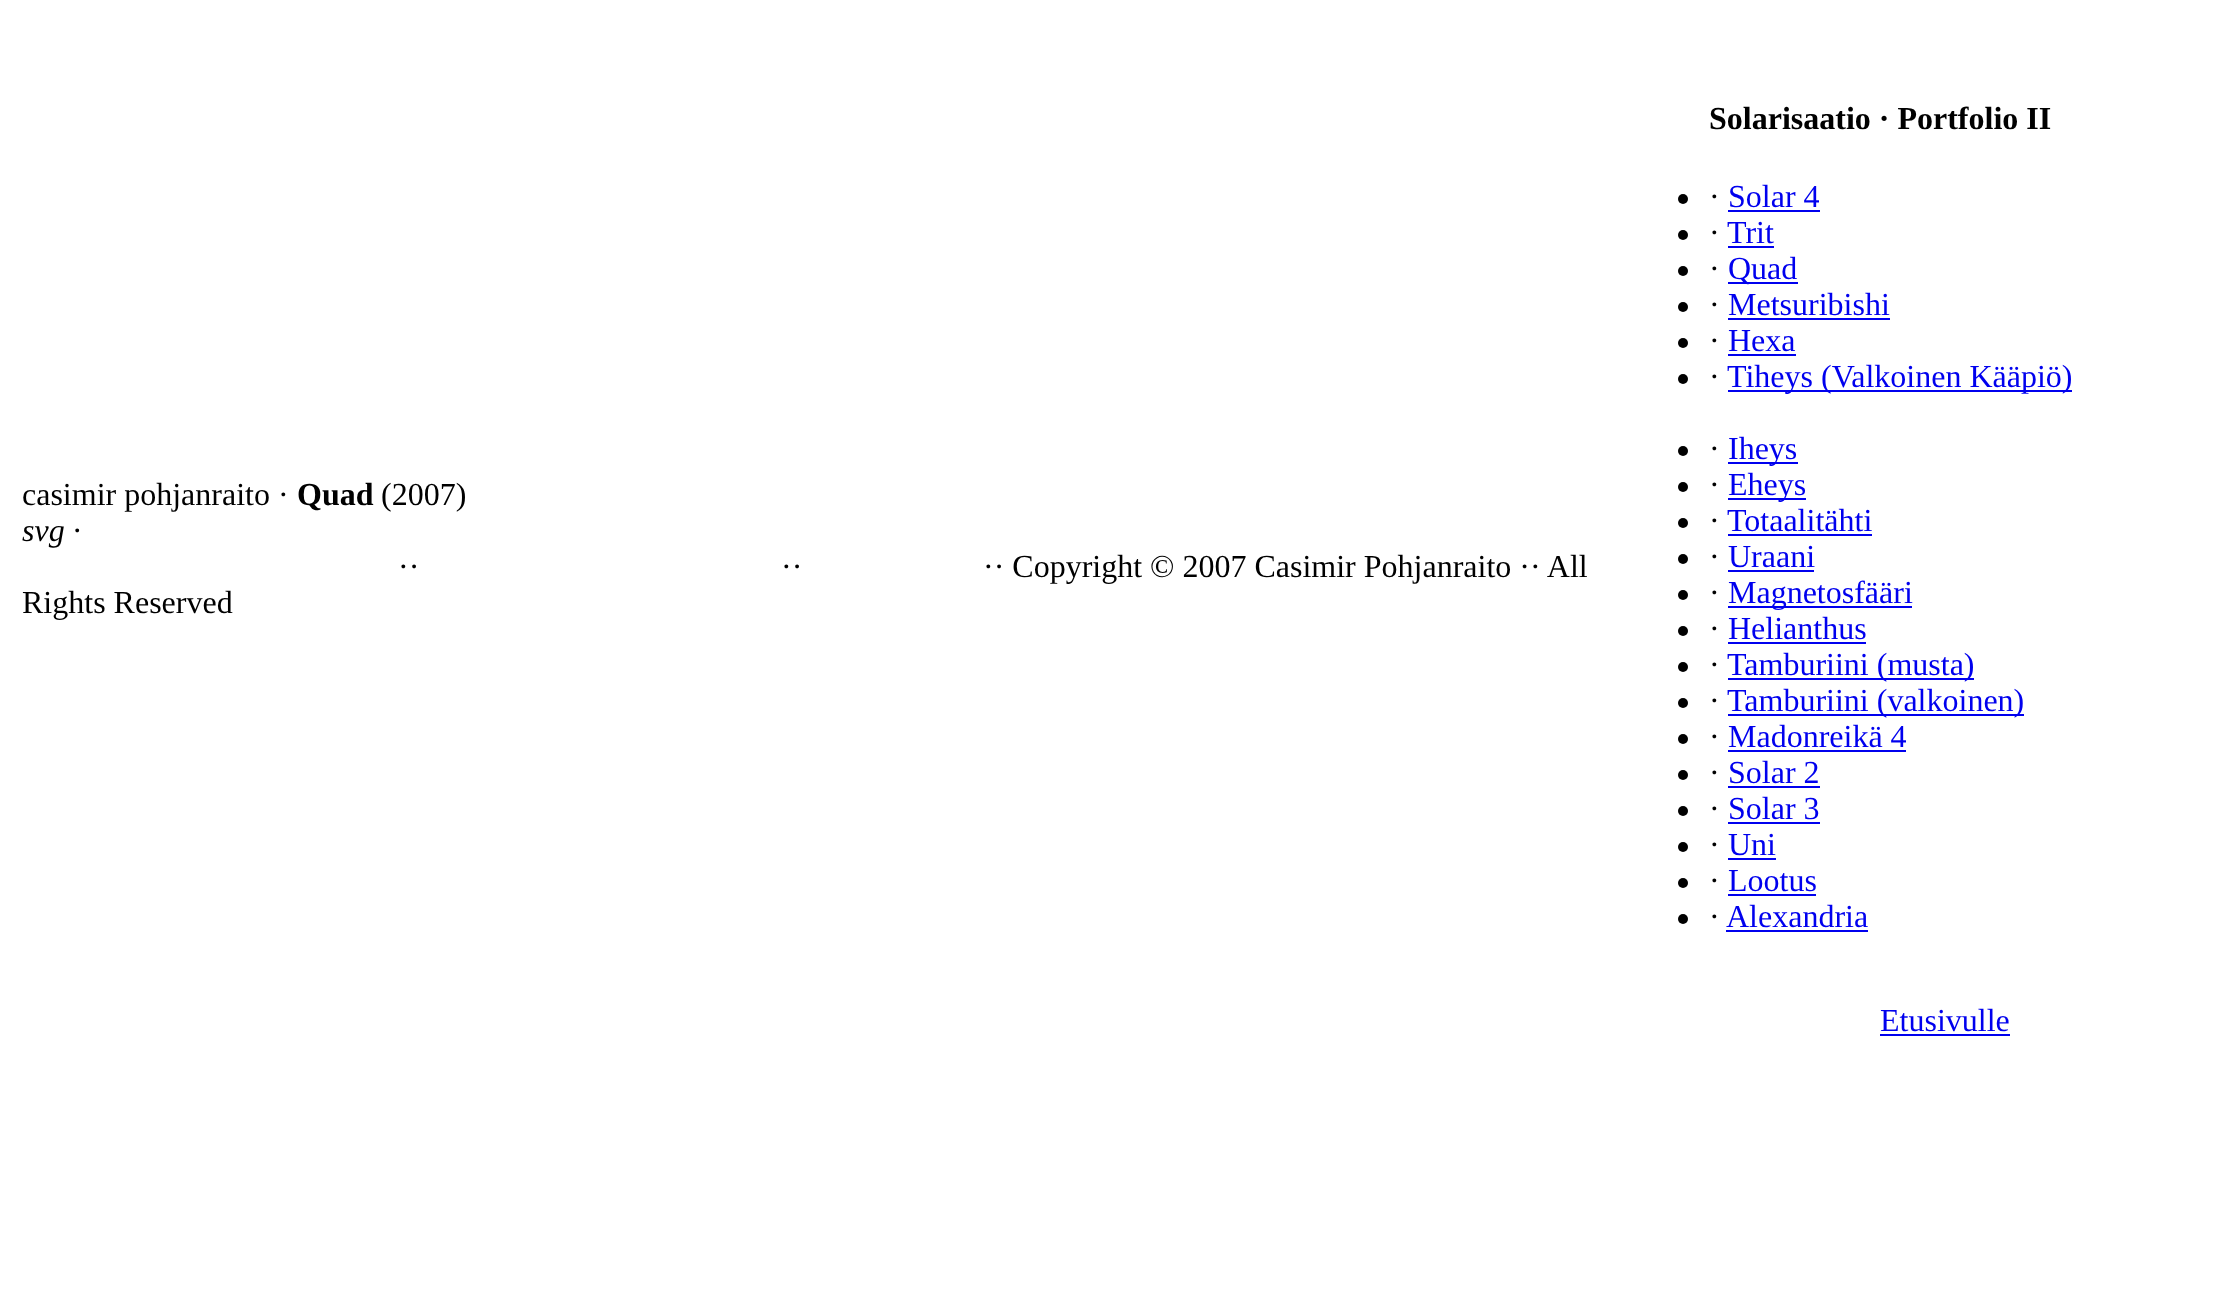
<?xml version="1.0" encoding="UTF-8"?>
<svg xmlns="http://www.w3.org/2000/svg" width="2218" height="1299">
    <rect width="100%" height="100%" fill="#FFFFFF"/>
    <text x="22" y="505" font-family="Liberation Serif" font-size="32" fill="#000000">casimir pohjanraito ·</text>
    <text x="297" y="505" font-family="Liberation Serif" font-size="32" font-weight="700" fill="#000000">Quad</text>
    <text x="381" y="505" font-family="Liberation Serif" font-size="32" fill="#000000">(2007)</text>
    <text x="22" y="541" font-family="Liberation Serif" font-size="32" font-style="italic" fill="#000000">svg ·</text>
    <text x="398" y="577" font-family="Liberation Serif" font-size="32" fill="#000000">··</text>
    <text x="781" y="577" font-family="Liberation Serif" font-size="32" fill="#000000">··</text>
    <text x="983" y="577" font-family="Liberation Serif" font-size="32" fill="#000000">·· Copyright © 2007 Casimir Pohjanraito ·· All</text>
    <text x="22" y="613" font-family="Liberation Serif" font-size="32" fill="#000000">Rights Reserved</text>
    <text x="1709" y="129" font-family="Liberation Serif" font-size="32" font-weight="700" fill="#000000">Solarisaatio · Portfolio II</text>
    <circle cx="1683" cy="199" r="5" fill="#000000"/>
    <text x="1709" y="207" font-family="Liberation Serif" font-size="32" fill="#000000">·</text>
    <text x="1728" y="207" font-family="Liberation Serif" font-size="32" fill="#0000EE">Solar 4</text>
    <rect x="1728" y="210" width="92" height="2" fill="#0000EE"/>
    <circle cx="1683" cy="235" r="5" fill="#000000"/>
    <text x="1709" y="243" font-family="Liberation Serif" font-size="32" fill="#000000">·</text>
    <text x="1727" y="243" font-family="Liberation Serif" font-size="32" fill="#0000EE">Trit</text>
    <rect x="1728" y="246" width="46" height="2" fill="#0000EE"/>
    <circle cx="1683" cy="271" r="5" fill="#000000"/>
    <text x="1709" y="279" font-family="Liberation Serif" font-size="32" fill="#000000">·</text>
    <rect x="1728" y="282" width="70" height="2" fill="#0000EE"/>
    <text x="1728" y="279" font-family="Liberation Serif" font-size="32" fill="#0000EE">Quad</text>
    <circle cx="1683" cy="307" r="5" fill="#000000"/>
    <text x="1709" y="315" font-family="Liberation Serif" font-size="32" fill="#000000">·</text>
    <text x="1728" y="315" font-family="Liberation Serif" font-size="32" fill="#0000EE">Metsuribishi</text>
    <rect x="1728" y="318" width="162" height="2" fill="#0000EE"/>
    <circle cx="1683" cy="343" r="5" fill="#000000"/>
    <text x="1709" y="351" font-family="Liberation Serif" font-size="32" fill="#000000">·</text>
    <text x="1728" y="351" font-family="Liberation Serif" font-size="32" fill="#0000EE">Hexa</text>
    <rect x="1728" y="354" width="68" height="2" fill="#0000EE"/>
    <circle cx="1683" cy="379" r="5" fill="#000000"/>
    <text x="1709" y="387" font-family="Liberation Serif" font-size="32" fill="#000000">·</text>
    <rect x="1728" y="390" width="344" height="2" fill="#0000EE"/>
    <text x="1727" y="387" font-family="Liberation Serif" font-size="32" fill="#0000EE">Tiheys (Valkoinen Kääpiö)</text>
    <circle cx="1683" cy="451" r="5" fill="#000000"/>
    <text x="1709" y="459" font-family="Liberation Serif" font-size="32" fill="#000000">·</text>
    <rect x="1728" y="462" width="70" height="2" fill="#0000EE"/>
    <text x="1728" y="459" font-family="Liberation Serif" font-size="32" fill="#0000EE">Iheys</text>
    <circle cx="1683" cy="487" r="5" fill="#000000"/>
    <text x="1709" y="495" font-family="Liberation Serif" font-size="32" fill="#000000">·</text>
    <rect x="1728" y="498" width="78" height="2" fill="#0000EE"/>
    <text x="1728" y="495" font-family="Liberation Serif" font-size="32" fill="#0000EE">Eheys</text>
    <circle cx="1683" cy="523" r="5" fill="#000000"/>
    <text x="1709" y="531" font-family="Liberation Serif" font-size="32" fill="#000000">·</text>
    <text x="1727" y="531" font-family="Liberation Serif" font-size="32" fill="#0000EE">Totaalitähti</text>
    <rect x="1728" y="534" width="144" height="2" fill="#0000EE"/>
    <circle cx="1683" cy="559" r="5" fill="#000000"/>
    <text x="1709" y="567" font-family="Liberation Serif" font-size="32" fill="#000000">·</text>
    <text x="1728" y="567" font-family="Liberation Serif" font-size="32" fill="#0000EE">Uraani</text>
    <rect x="1728" y="570" width="86" height="2" fill="#0000EE"/>
    <circle cx="1683" cy="595" r="5" fill="#000000"/>
    <text x="1709" y="603" font-family="Liberation Serif" font-size="32" fill="#000000">·</text>
    <rect x="1728" y="606" width="184" height="2" fill="#0000EE"/>
    <text x="1728" y="603" font-family="Liberation Serif" font-size="32" fill="#0000EE">Magnetosfääri</text>
    <circle cx="1683" cy="631" r="5" fill="#000000"/>
    <text x="1709" y="639" font-family="Liberation Serif" font-size="32" fill="#000000">·</text>
    <text x="1728" y="639" font-family="Liberation Serif" font-size="32" fill="#0000EE">Helianthus</text>
    <rect x="1728" y="642" width="138" height="2" fill="#0000EE"/>
    <circle cx="1683" cy="667" r="5" fill="#000000"/>
    <text x="1709" y="675" font-family="Liberation Serif" font-size="32" fill="#000000">·</text>
    <rect x="1728" y="678" width="246" height="2" fill="#0000EE"/>
    <text x="1727" y="675" font-family="Liberation Serif" font-size="32" fill="#0000EE">Tamburiini (musta)</text>
    <circle cx="1683" cy="703" r="5" fill="#000000"/>
    <text x="1709" y="711" font-family="Liberation Serif" font-size="32" fill="#000000">·</text>
    <rect x="1728" y="714" width="296" height="2" fill="#0000EE"/>
    <text x="1727" y="711" font-family="Liberation Serif" font-size="32" fill="#0000EE">Tamburiini (valkoinen)</text>
    <circle cx="1683" cy="739" r="5" fill="#000000"/>
    <text x="1709" y="747" font-family="Liberation Serif" font-size="32" fill="#000000">·</text>
    <text x="1728" y="747" font-family="Liberation Serif" font-size="32" fill="#0000EE">Madonreikä 4</text>
    <rect x="1728" y="750" width="178" height="2" fill="#0000EE"/>
    <circle cx="1683" cy="775" r="5" fill="#000000"/>
    <text x="1709" y="783" font-family="Liberation Serif" font-size="32" fill="#000000">·</text>
    <text x="1728" y="783" font-family="Liberation Serif" font-size="32" fill="#0000EE">Solar 2</text>
    <rect x="1728" y="786" width="92" height="2" fill="#0000EE"/>
    <circle cx="1683" cy="811" r="5" fill="#000000"/>
    <text x="1709" y="819" font-family="Liberation Serif" font-size="32" fill="#000000">·</text>
    <text x="1728" y="819" font-family="Liberation Serif" font-size="32" fill="#0000EE">Solar 3</text>
    <rect x="1728" y="822" width="92" height="2" fill="#0000EE"/>
    <circle cx="1683" cy="847" r="5" fill="#000000"/>
    <text x="1709" y="855" font-family="Liberation Serif" font-size="32" fill="#000000">·</text>
    <text x="1728" y="855" font-family="Liberation Serif" font-size="32" fill="#0000EE">Uni</text>
    <rect x="1728" y="858" width="48" height="2" fill="#0000EE"/>
    <circle cx="1683" cy="883" r="5" fill="#000000"/>
    <text x="1709" y="891" font-family="Liberation Serif" font-size="32" fill="#000000">·</text>
    <text x="1728" y="891" font-family="Liberation Serif" font-size="32" fill="#0000EE">Lootus</text>
    <rect x="1728" y="894" width="88" height="2" fill="#0000EE"/>
    <circle cx="1683" cy="919" r="5" fill="#000000"/>
    <text x="1709" y="927" font-family="Liberation Serif" font-size="32" fill="#000000">·</text>
    <text x="1726" y="927" font-family="Liberation Serif" font-size="32" fill="#0000EE">Alexandria</text>
    <rect x="1726" y="930" width="142" height="2" fill="#0000EE"/>
    <text x="1880" y="1031" font-family="Liberation Serif" font-size="32" fill="#0000EE">Etusivulle</text>
    <rect x="1880" y="1034" width="130" height="2" fill="#0000EE"/>
</svg>
